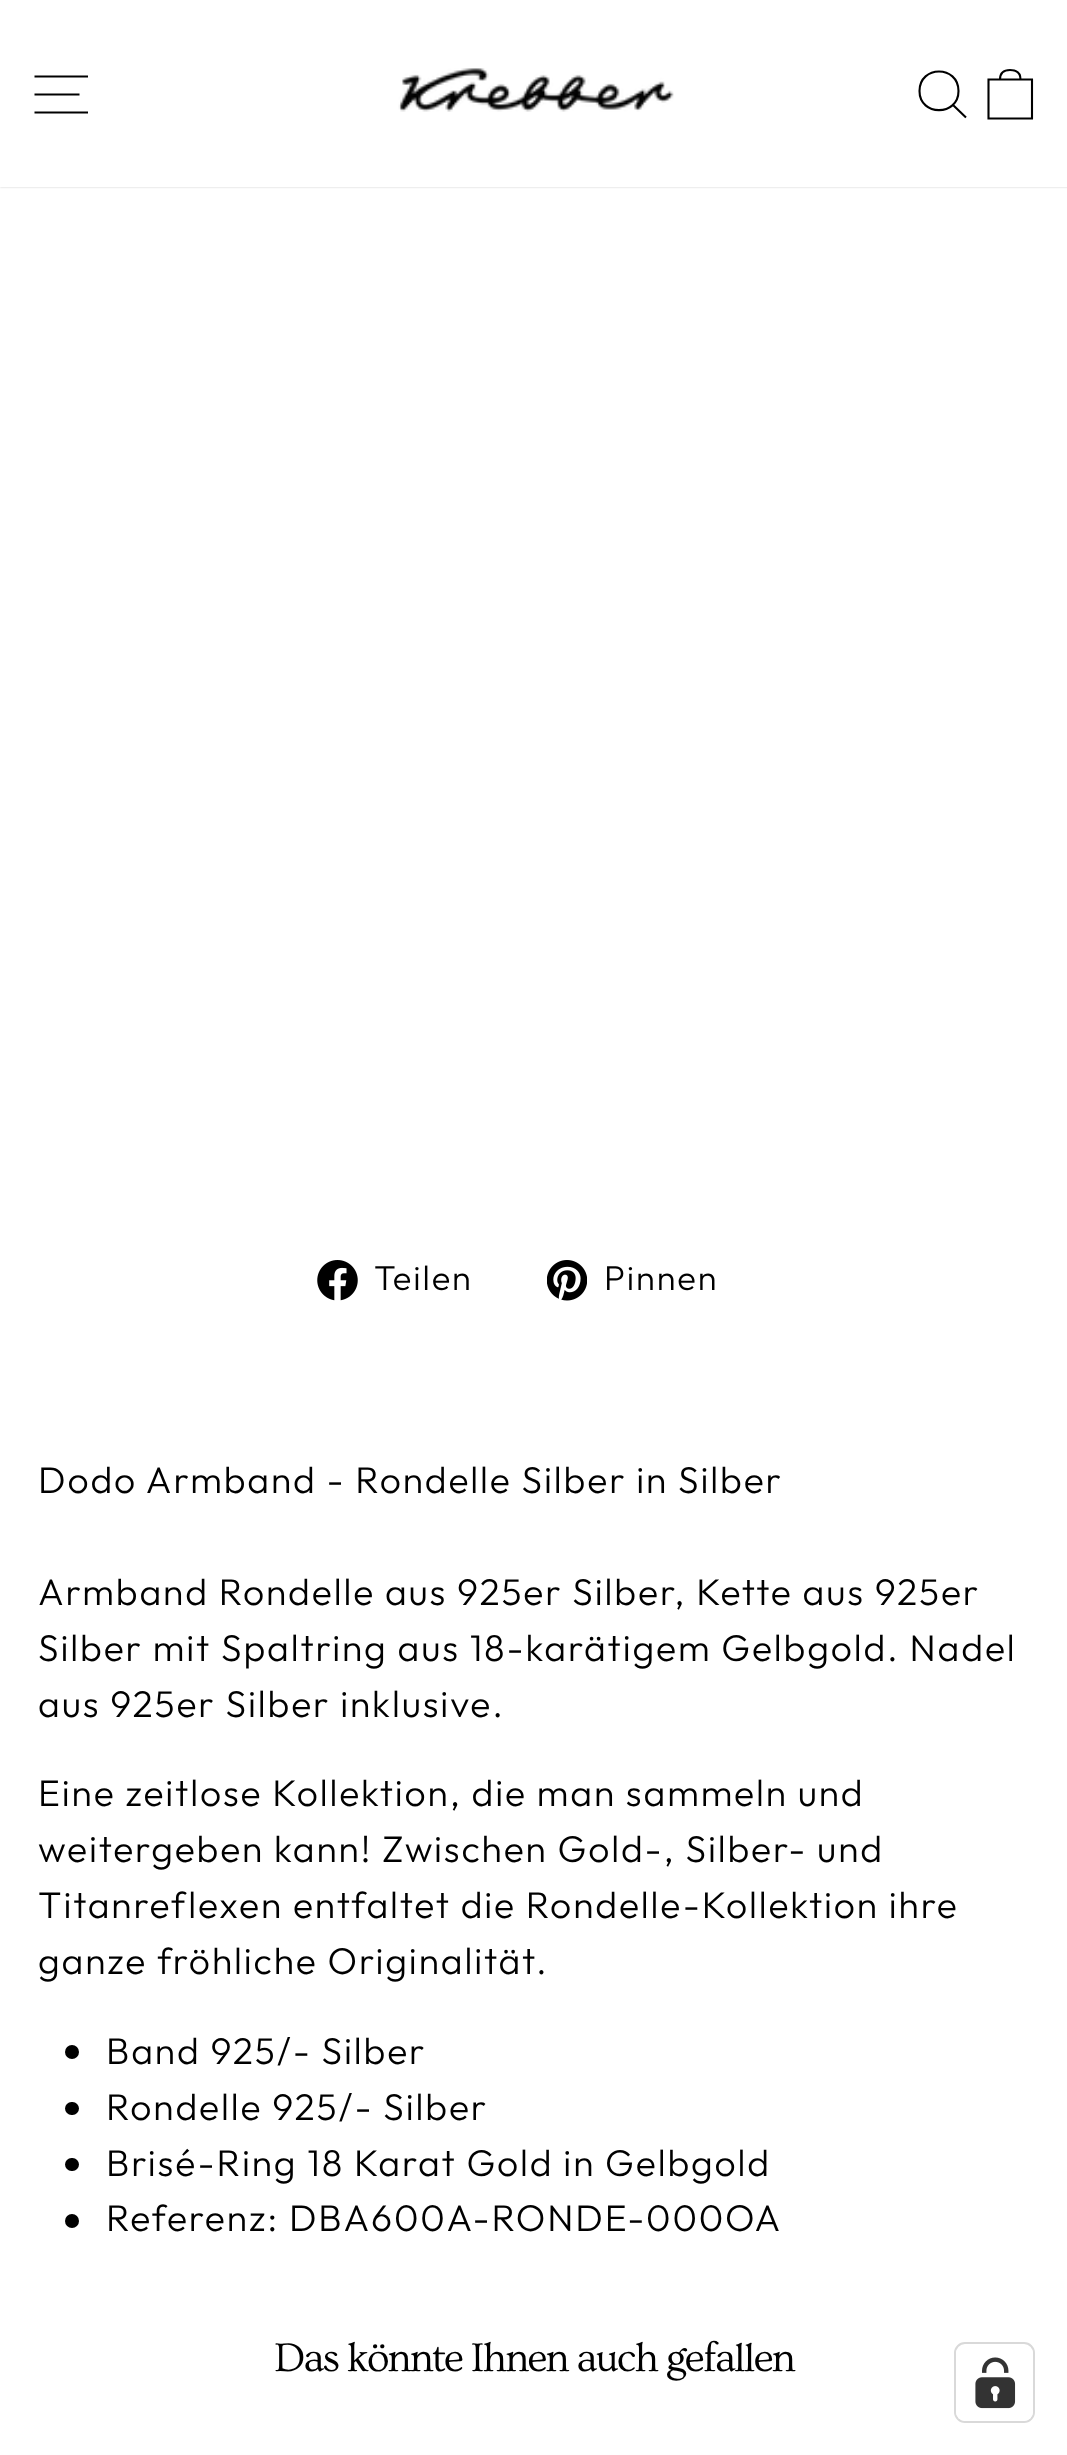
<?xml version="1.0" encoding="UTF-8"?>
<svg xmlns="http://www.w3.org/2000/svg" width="1067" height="2455">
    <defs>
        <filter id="blur1" x="-50%" y="-200%" width="200%" height="500%"><feGaussianBlur stdDeviation="1"/></filter>
    </defs>
    <rect width="100%" height="100%" fill="#FFFFFF"/>
    <rect x="0" y="0" width="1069" height="187" fill="#000000" fill-opacity="0.2" filter="url(#blur1)"/>
    <rect x="0" y="0" width="1067" height="187" fill="#FFFFFF"/>
    <path d="M 34.5 76.5 H 88 M 34.5 94.5 H 79.5 M 34.5 112.5 H 88" fill="none" stroke="#000000" stroke-width="2.1"/>
    <image x="398" y="68" width="276" height="44" href="img_01.png"/>
    <path d="M 958.5 91 C 958.5 116.5 919.5 116.5 919.5 91 C 919.5 65 958.5 65 958.5 91 Z M 966 117.5 L 953 105" fill="none" stroke="#000000" stroke-width="2.1"/>
    <path d="M 988.5 79.5 H 1032 V 118.5 H 988.5 Z M 1000 79.5 C 1000 72 1004.5 70 1010 70 C 1016 70 1020.5 72 1020.5 79.5" fill="none" stroke="#000000" stroke-width="2.1"/>
    <image x="317" y="1260" width="41" height="41" href="img_02.png"/>
    <text x="374" y="1290" font-family="Outfit" font-size="34.5" font-weight="300" letter-spacing="1.85" fill="#000000">Teilen</text>
    <image x="547" y="1260" width="40" height="41" href="img_03.png"/>
    <text x="604" y="1290" font-family="Outfit" font-size="34.5" font-weight="300" letter-spacing="1.85" fill="#000000">Pinnen</text>
    <text x="38" y="1493" font-family="Outfit" font-size="37.25" font-weight="300" letter-spacing="1.85" fill="#000000">Dodo Armband - Rondelle Silber in Silber</text>
    <text font-family="Outfit" font-size="37.25" font-weight="300" letter-spacing="1.85" fill="#000000">
        <tspan x="38" y="1605">Armband Rondelle aus 925er Silber, Kette aus 925er</tspan>
        <tspan x="38" y="1661">Silber mit Spaltring aus 18-karätigem Gelbgold. Nadel</tspan>
        <tspan x="38" y="1717">aus 925er Silber inklusive.</tspan>
    </text>
    <text font-family="Outfit" font-size="37.25" font-weight="300" letter-spacing="1.85" fill="#000000">
        <tspan x="38" y="1806">Eine zeitlose Kollektion, die man sammeln und</tspan>
        <tspan x="38" y="1862">weitergeben kann! Zwischen Gold-, Silber- und</tspan>
        <tspan x="38" y="1918">Titanreflexen entfaltet die Rondelle-Kollektion ihre</tspan>
        <tspan x="38" y="1974">ganze fröhliche Originalität.</tspan>
    </text>
    <circle cx="72" cy="2052" r="7" fill="#000000"/>
    <text x="106" y="2064" font-family="Outfit" font-size="37.25" font-weight="300" letter-spacing="1.85" fill="#000000">Band 925/- Silber</text>
    <rect x="65" y="2102" width="14" height="13" rx="6.5" fill="#000000"/>
    <text x="106" y="2120" font-family="Outfit" font-size="37.25" font-weight="300" letter-spacing="1.85" fill="#000000">Rondelle 925/- Silber</text>
    <rect x="65" y="2158" width="14" height="13" rx="6.5" fill="#000000"/>
    <text x="106" y="2176" font-family="Outfit" font-size="37.25" font-weight="300" letter-spacing="1.85" fill="#000000">Brisé-Ring 18 Karat Gold in Gelbgold</text>
    <circle cx="72" cy="2221" r="7" fill="#000000"/>
    <text x="106" y="2231" font-family="Outfit" font-size="37.25" font-weight="300" letter-spacing="1.85" fill="#000000">Referenz: DBA600A-RONDE-000OA</text>
    <text x="274" y="2371" font-family="Ovo" font-size="41.8" letter-spacing="-2.1" fill="#000000">Das könnte Ihnen auch gefallen</text>
    <rect x="955" y="2343" width="79" height="79" rx="10" fill="none" stroke="#D9D9D9" stroke-width="2"/>
    <rect x="956" y="2345" width="77" height="76" rx="9" fill="#FFFFFF"/>
    <image x="975" y="2357" width="41" height="52" href="img_04.png"/>
</svg>
